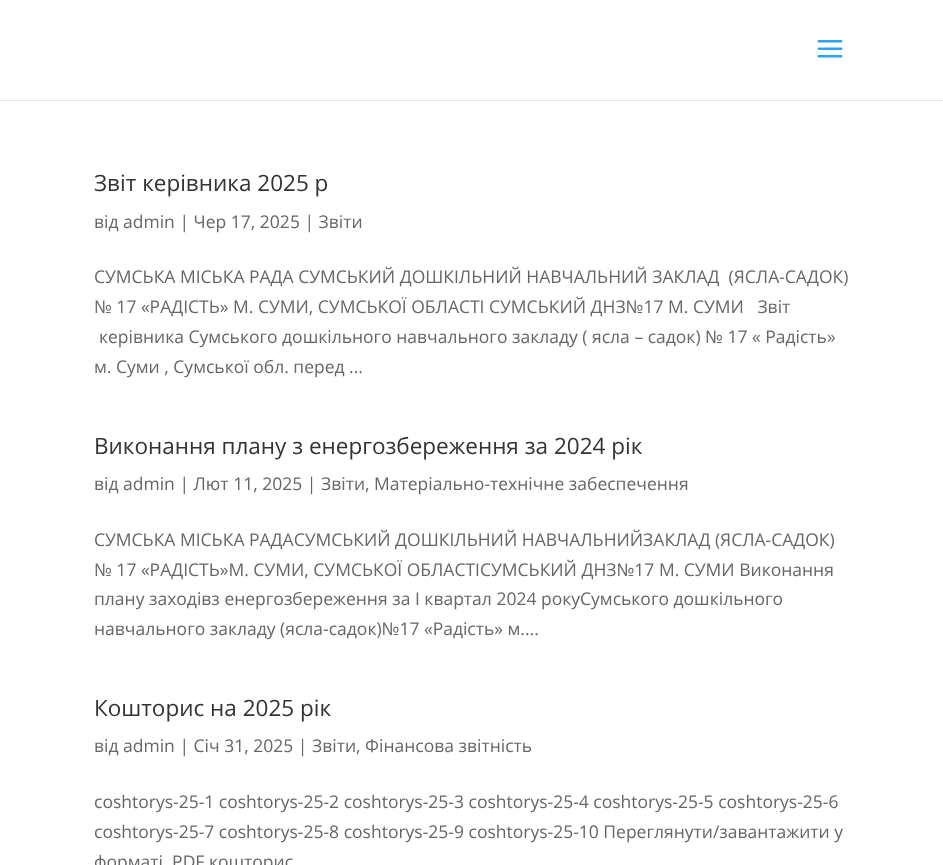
<?xml version="1.0" encoding="UTF-8"?>
<svg xmlns="http://www.w3.org/2000/svg" width="943" height="865">
    <rect width="100%" height="100%" fill="#FFFFFF"/>
    <path d="M 0 100 V 101 H 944 V 1 V 100 Z" fill="#E6E6E6"/>
    <image x="817" y="40" width="26" height="18" href="img_01.png"/>
    <text x="94" y="191" font-family="Open Sans" font-size="22.5" fill="#333333">Звіт керівника 2025 р</text>
    <text x="94" y="228" font-family="Open Sans" font-size="17.5" fill="#666666">від admin | Чер 17, 2025 | Звіти</text>
    <text font-family="Open Sans" font-size="17.5" fill="#666666" xml:space="preserve"><tspan x="94" y="283">СУМСЬКА МІСЬКА РАДА СУМСЬКИЙ ДОШКІЛЬНИЙ НАВЧАЛЬНИЙ ЗАКЛАД  (ЯСЛА-САДОК)</tspan><tspan x="94" y="313">№ 17 «РАДІСТЬ» М. СУМИ, СУМСЬКОЇ ОБЛАСТІ СУМСЬКИЙ ДНЗ№17 М. СУМИ   Звіт</tspan></text>
    <text x="99" y="343" font-family="Open Sans" font-size="17.5" fill="#666666">керівника Сумського дошкільного навчального закладу ( ясла – садок) № 17 « Радість»</text>
    <text x="94" y="373" font-family="Open Sans" font-size="17.5" fill="#666666">м. Суми , Сумської обл. перед ...</text>
    <text x="94" y="454" font-family="Open Sans" font-size="22.5" fill="#333333">Виконання плану з енергозбереження за 2024 рік</text>
    <text x="94" y="490" font-family="Open Sans" font-size="17.5" fill="#666666">від admin | Лют 11, 2025 | Звіти, Матеріально-технічне забеспечення</text>
    <text font-family="Open Sans" font-size="17.5" fill="#666666">
        <tspan x="94" y="546">СУМСЬКА МІСЬКА РАДАСУМСЬКИЙ ДОШКІЛЬНИЙ НАВЧАЛЬНИЙЗАКЛАД (ЯСЛА-САДОК)</tspan>
        <tspan x="94" y="576">№ 17 «РАДІСТЬ»М. СУМИ, СУМСЬКОЇ ОБЛАСТІСУМСЬКИЙ ДНЗ№17 М. СУМИ Виконання</tspan>
        <tspan x="94" y="605">плану заходівз енергозбереження за I квартал 2024 рокуСумського дошкільного</tspan>
        <tspan x="94" y="635">навчального закладу (ясла-садок)№17 «Радість» м....</tspan>
    </text>
    <text x="94" y="716" font-family="Open Sans" font-size="22.5" fill="#333333">Кошторис на 2025 рік</text>
    <text x="94" y="752" font-family="Open Sans" font-size="17.5" fill="#666666">від admin | Січ 31, 2025 | Звіти, Фінансова звітність</text>
    <text font-family="Open Sans" font-size="17.5" fill="#666666">
        <tspan x="94" y="808">coshtorys-25-1 coshtorys-25-2 coshtorys-25-3 coshtorys-25-4 coshtorys-25-5 coshtorys-25-6</tspan>
        <tspan x="94" y="838">coshtorys-25-7 coshtorys-25-8 coshtorys-25-9 coshtorys-25-10 Переглянути/завантажити у</tspan>
        <tspan x="94" y="868">форматі .PDF кошторис</tspan>
    </text>
</svg>
